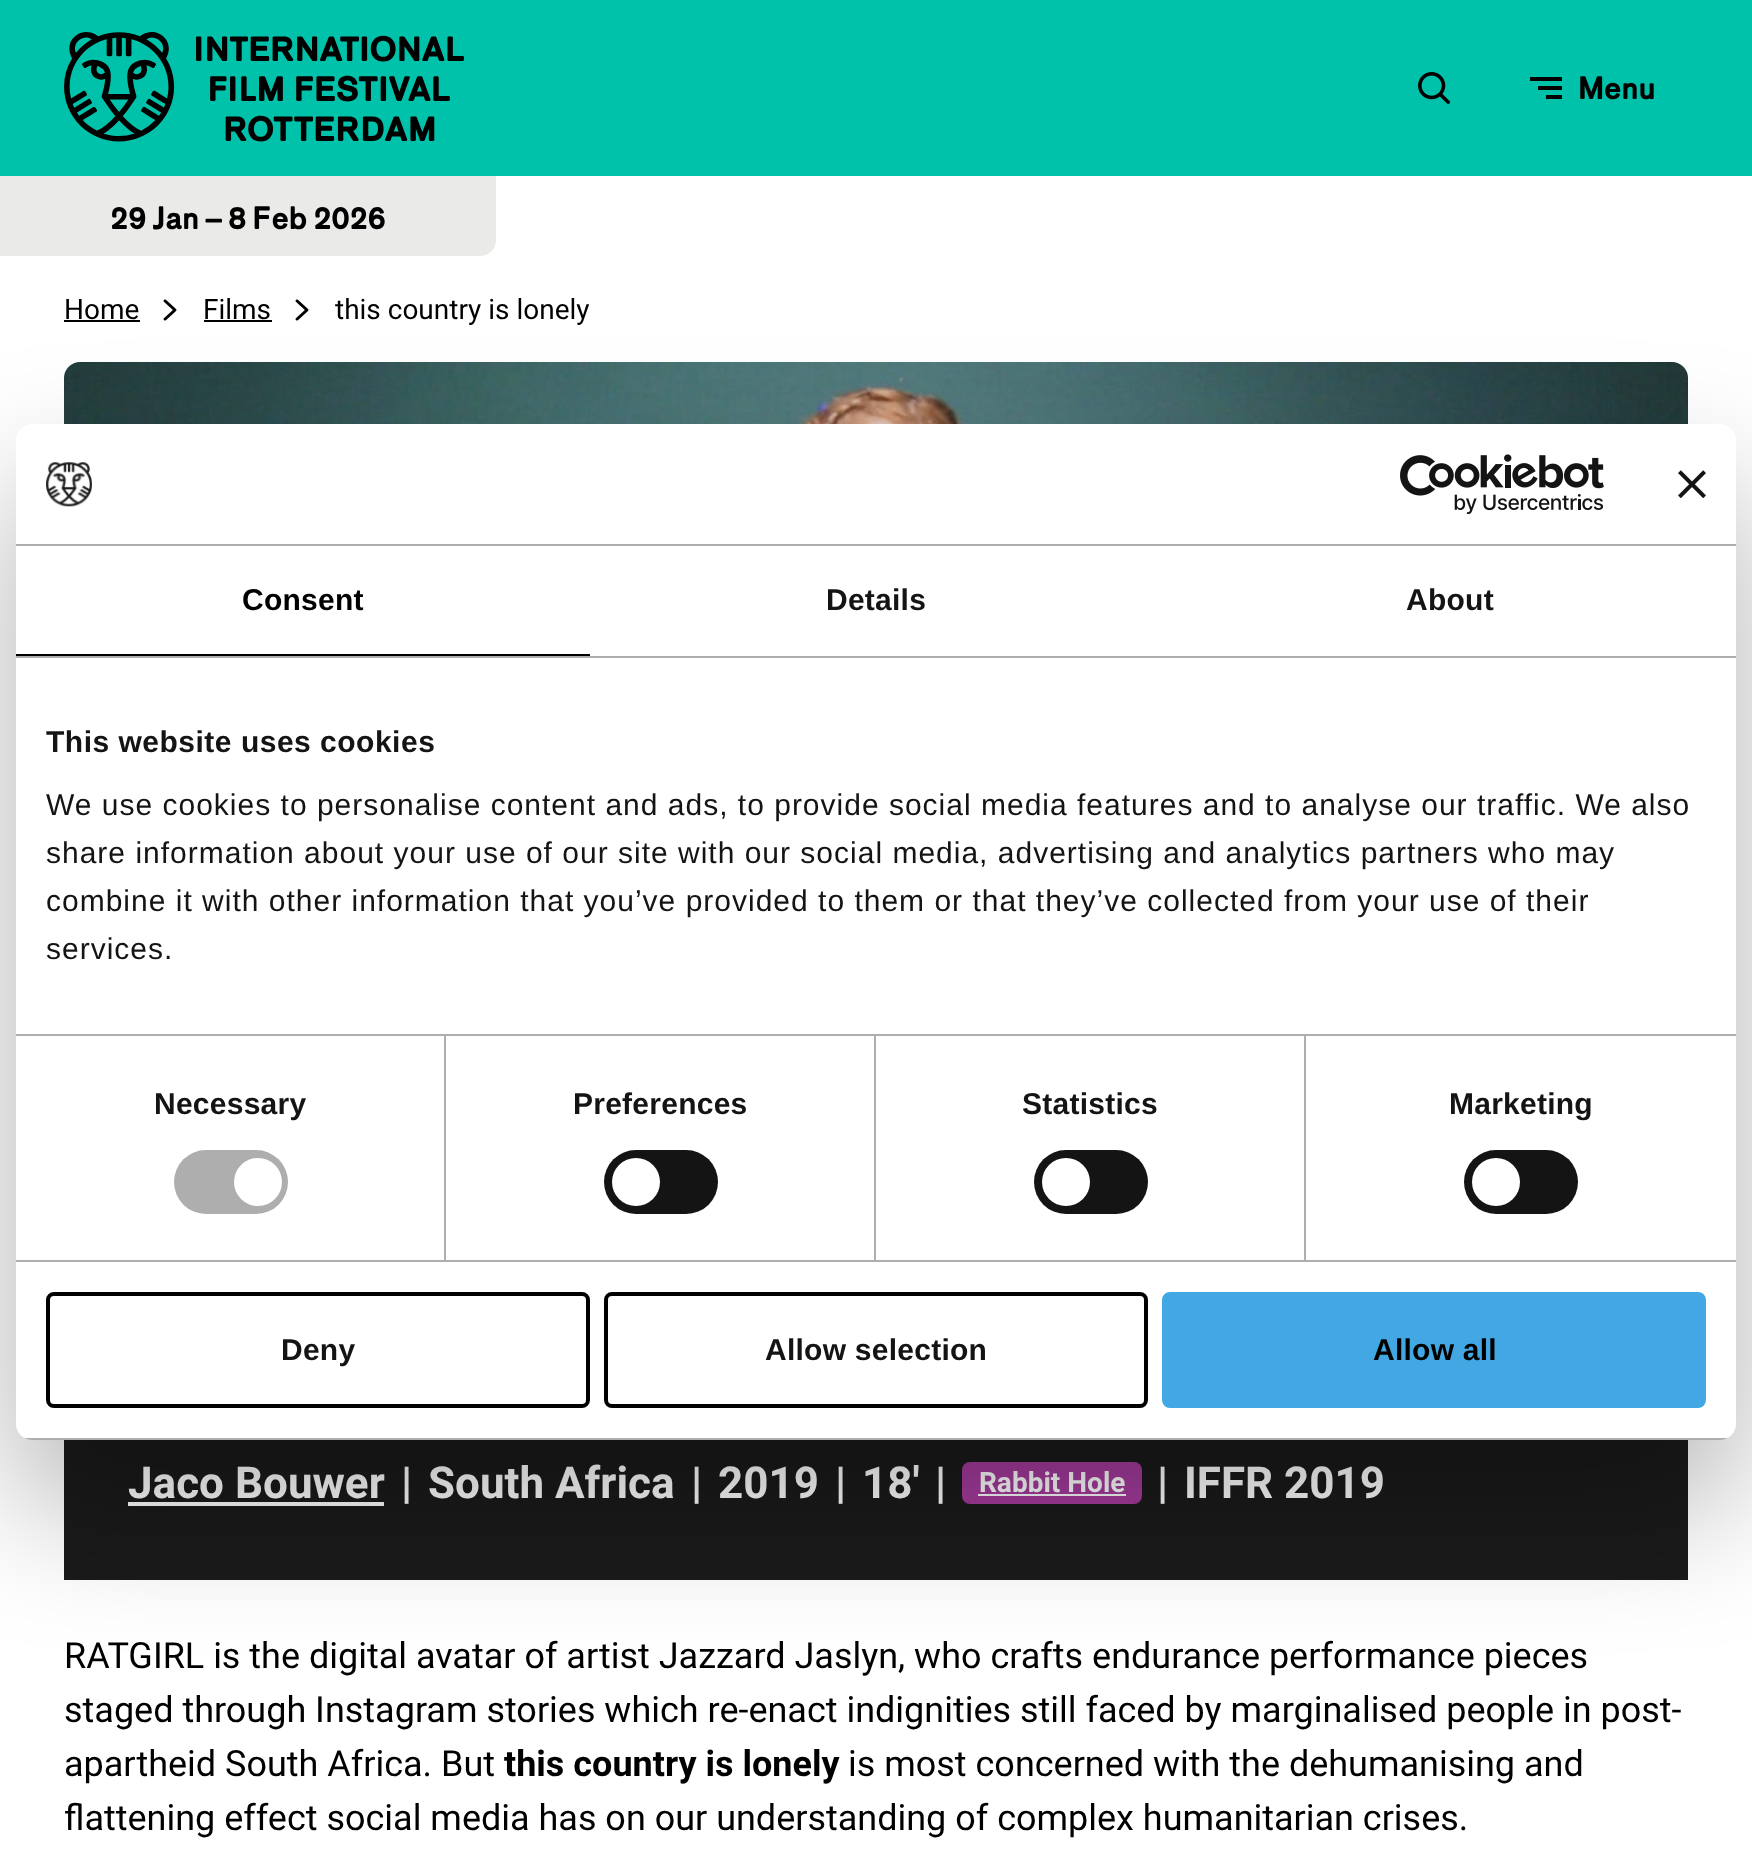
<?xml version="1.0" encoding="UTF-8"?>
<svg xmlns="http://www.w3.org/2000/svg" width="1752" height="1864">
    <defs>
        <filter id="blur1" x="-50%" y="-200%" width="200%" height="500%"><feGaussianBlur stdDeviation="68"/></filter>
        <clipPath id="clip1"><rect x="16" y="424" width="1720" height="1016" rx="16"/></clipPath>
    </defs>
    <rect width="100%" height="100%" fill="#FFFFFF"/>
    <rect x="0" y="0" width="1752" height="176" fill="#00C2AB"/>
    <image x="64" y="32" width="400" height="110" href="img_01.png"/>
    <image x="1418" y="72" width="32" height="32" href="img_02.png"/>
    <rect x="1530" y="77" width="32" height="4" rx="0.5" fill="#000000"/>
    <rect x="1538" y="86" width="24" height="4" rx="0.5" fill="#000000"/>
    <rect x="1546" y="95" width="16" height="4" rx="0.5" fill="#000000"/>
    <text x="1578" y="99" font-family="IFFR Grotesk" font-size="32" fill="#000000">Menu</text>
    <path d="M 0 176 H 496 V 240 C 496 249 489 256 480 256 H 0 Z" fill="#EAEAE8"/>
    <text x="110" y="229" font-family="IFFR Grotesk" font-size="32" fill="#000000">29 Jan – 8 Feb 2026</text>
    <text x="64" y="319" font-family="Roboto" font-size="28" fill="#000000">Home</text>
    <rect x="64" y="320" width="76" height="2" fill="#000000"/>
    <image x="163" y="299" width="14" height="22" href="img_03.png"/>
    <text x="203" y="319" font-family="Roboto" font-size="28" fill="#000000">Films</text>
    <rect x="204" y="320" width="68" height="2" fill="#000000"/>
    <image x="295" y="299" width="14" height="22" href="img_03.png"/>
    <text x="335" y="319" font-family="Roboto" font-size="28" fill="#000000">this country is lonely</text>
    <image x="64" y="362" width="1624" height="62" href="img_04.png"/>
    <rect x="64" y="1440" width="1624" height="140" fill="#1A1A1A"/>
    <text x="128" y="1498" font-family="Roboto" font-size="44" font-weight="700" fill="#FFFFFF">Jaco Bouwer</text>
    <rect x="128" y="1502" width="256" height="4" fill="#FFFFFF"/>
    <text x="401" y="1498" font-family="Roboto" font-size="44" font-weight="700" fill="#FFFFFF">|</text>
    <text x="428" y="1498" font-family="Roboto" font-size="44" font-weight="700" fill="#FFFFFF">South Africa</text>
    <text x="691" y="1498" font-family="Roboto" font-size="44" font-weight="700" fill="#FFFFFF">|</text>
    <text x="718" y="1498" font-family="Roboto" font-size="44" font-weight="700" fill="#FFFFFF">2019</text>
    <text x="835" y="1498" font-family="Roboto" font-size="44" font-weight="700" fill="#FFFFFF">|</text>
    <text x="862" y="1498" font-family="Roboto" font-size="44" font-weight="700" fill="#FFFFFF">18'</text>
    <text x="935" y="1498" font-family="Roboto" font-size="44" font-weight="700" fill="#FFFFFF">|</text>
    <rect x="962" y="1462" width="180" height="42" rx="8" fill="#A63B9E"/>
    <text x="979" y="1492" font-family="Roboto" font-size="28" font-weight="700" fill="#FFFFFF">Rabbit Hole</text>
    <rect x="978" y="1494" width="148" height="2" fill="#FFFFFF"/>
    <text x="1157" y="1498" font-family="Roboto" font-size="44" font-weight="700" fill="#FFFFFF">|</text>
    <text x="1184" y="1498" font-family="Roboto" font-size="44" font-weight="700" fill="#FFFFFF">IFFR 2019</text>
    <text font-family="Roboto" font-size="36" fill="#000000">
        <tspan x="64" y="1668">RATGIRL is the digital avatar of artist Jazzard Jaslyn, who crafts endurance performance pieces</tspan>
        <tspan x="64" y="1722">staged through Instagram stories which re-enact indignities still faced by marginalised people in post-</tspan>
        <tspan x="64" y="1776">apartheid South Africa. But</tspan>
    </text>
    <text x="504" y="1776" font-family="Roboto" font-size="36" font-weight="700" fill="#000000">this country is lonely</text>
    <text x="848" y="1776" font-family="Roboto" font-size="36" fill="#000000">is most concerned with the dehumanising and</text>
    <text x="64" y="1830" font-family="Roboto" font-size="36" fill="#000000">flattening effect social media has on our understanding of complex humanitarian crises.</text>
    <rect x="16" y="488" width="1720" height="1016" rx="16" fill="#000000" fill-opacity="0.3" filter="url(#blur1)"/>
    <rect x="16" y="424" width="1720" height="1016" rx="16" fill="#FFFFFF"/>
    <rect x="16" y="544" width="1720" height="2" fill="#AFAEAE"/>
    <image x="46" y="462" width="46" height="45" href="img_05.png"/>
    <image x="1400" y="454" width="204" height="60" href="img_06.png"/>
    <image x="1678" y="470" width="28" height="28" href="img_07.png"/>
    <rect x="16" y="656" width="1720" height="2" fill="#AFAEAE"/>
    <rect x="16" y="654" width="574" height="2" fill="#000000"/>
    <text x="242" y="610" font-family="Liberation Sans" font-size="30" font-weight="700" letter-spacing="0.25" fill="#000000">Consent</text>
    <text x="826" y="610" font-family="Liberation Sans" font-size="30" font-weight="700" letter-spacing="0.25" fill="#141414">Details</text>
    <text x="1406" y="610" font-family="Liberation Sans" font-size="30" font-weight="700" letter-spacing="0.25" fill="#141414">About</text>
    <rect x="16" y="1034" width="1720" height="2" fill="#AFAEAE"/>
    <text x="46" y="752" font-family="Liberation Sans" font-size="30" font-weight="700" letter-spacing="0.5" fill="#141414">This website uses cookies</text>
    <text font-family="Liberation Sans" font-size="30" letter-spacing="1" fill="#141414">
        <tspan x="46" y="815">We use cookies to personalise content and ads, to provide social media features and to analyse our traffic. We also</tspan>
        <tspan x="46" y="863">share information about your use of our site with our social media, advertising and analytics partners who may</tspan>
        <tspan x="46" y="911">combine it with other information that you’ve provided to them or that they’ve collected from your use of their</tspan>
        <tspan x="46" y="959">services.</tspan>
    </text>
    <rect x="16" y="1260" width="1720" height="2" fill="#AFAEAE"/>
    <rect x="444" y="1036" width="2" height="224" fill="#AFAEAE"/>
    <text x="154" y="1114" font-family="Liberation Sans" font-size="30" font-weight="700" letter-spacing="0.25" fill="#141414">Necessary</text>
    <rect x="174" y="1150" width="114" height="64" rx="32" fill="#AFAEAE"/>
    <circle cx="258" cy="1182" r="24" fill="#FFFFFF"/>
    <rect x="874" y="1036" width="2" height="224" fill="#AFAEAE"/>
    <text x="573" y="1114" font-family="Liberation Sans" font-size="30" font-weight="700" letter-spacing="0.25" fill="#141414">Preferences</text>
    <rect x="604" y="1150" width="114" height="64" rx="32" fill="#141414"/>
    <circle cx="636" cy="1182" r="24" fill="#FFFFFF"/>
    <rect x="1304" y="1036" width="2" height="224" fill="#AFAEAE"/>
    <text x="1022" y="1114" font-family="Liberation Sans" font-size="30" font-weight="700" letter-spacing="0.25" fill="#141414">Statistics</text>
    <rect x="1034" y="1150" width="114" height="64" rx="32" fill="#141414"/>
    <circle cx="1066" cy="1182" r="24" fill="#FFFFFF"/>
    <text x="1449" y="1114" font-family="Liberation Sans" font-size="30" font-weight="700" letter-spacing="0.25" fill="#141414">Marketing</text>
    <rect x="1464" y="1150" width="114" height="64" rx="32" fill="#141414"/>
    <circle cx="1496" cy="1182" r="24" fill="#FFFFFF"/>
    <g clip-path="url(#clip1)">
        <rect x="16" y="1438" width="1720" height="2" fill="#AFAEAE"/>
    </g>
    <rect x="48" y="1294" width="540" height="112" rx="6" fill="none" stroke="#000000" stroke-width="4"/>
    <text x="281" y="1360" font-family="Liberation Sans" font-size="30" font-weight="700" letter-spacing="0.25" fill="#141414">Deny</text>
    <rect x="606" y="1294" width="540" height="112" rx="6" fill="none" stroke="#000000" stroke-width="4"/>
    <text x="765" y="1360" font-family="Liberation Sans" font-size="30" font-weight="700" letter-spacing="0.25" fill="#141414">Allow selection</text>
    <rect x="1164" y="1294" width="540" height="112" rx="6" fill="#43A7E4" stroke="#43A7E4" stroke-width="4"/>
    <text x="1373" y="1360" font-family="Liberation Sans" font-size="30" font-weight="700" letter-spacing="0.25" fill="#000000">Allow all</text>
</svg>
